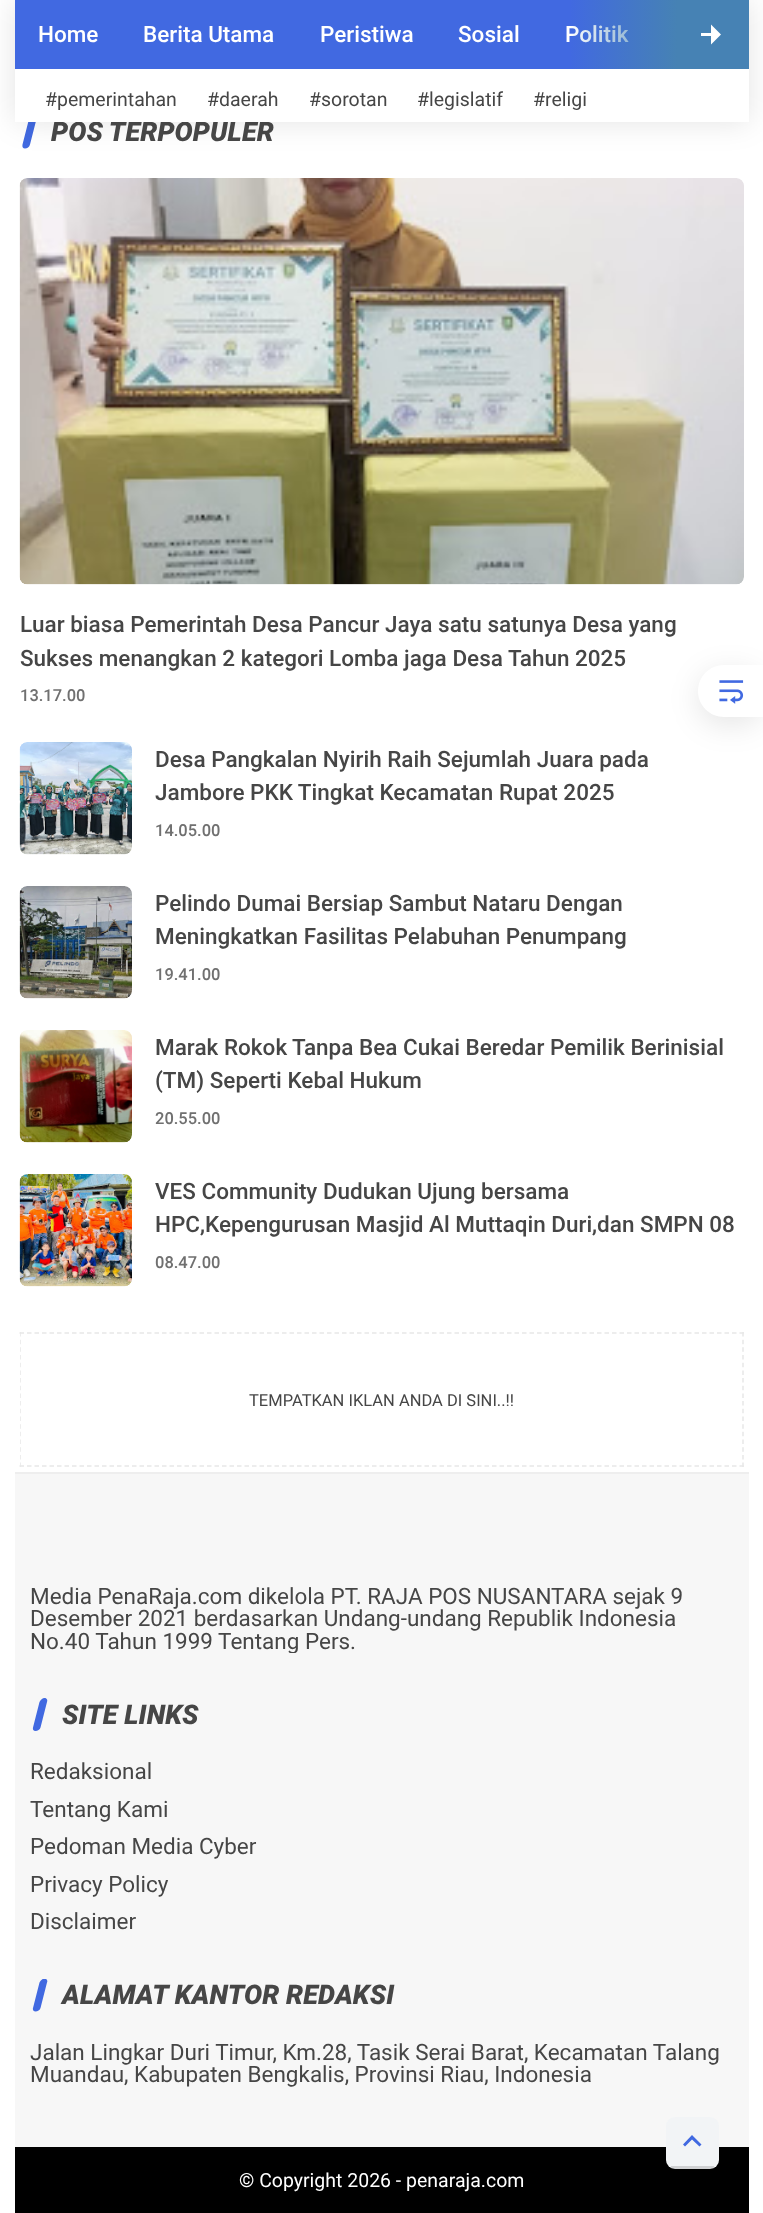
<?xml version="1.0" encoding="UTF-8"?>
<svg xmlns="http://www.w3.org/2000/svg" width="763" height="2213">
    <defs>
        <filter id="blur1" x="-50%" y="-200%" width="200%" height="500%"><feGaussianBlur stdDeviation="15"/></filter>
        <linearGradient id="g1" gradientUnits="userSpaceOnUse" x1="749" y1="35" x2="569" y2="34"><stop offset="0.4" stop-color="#4682B4"/><stop offset="1" stop-color="#4682B4" stop-opacity="0"/></linearGradient>
        <clipPath id="clip1"><rect x="20" y="1332" width="724" height="135"/></clipPath>
        <clipPath id="clip2"><rect x="30" y="1488" width="704" height="165"/></clipPath>
        <clipPath id="clip3"><rect x="30" y="1979" width="704" height="108"/></clipPath>
    </defs>
    <rect width="100%" height="100%" fill="#FFFFFF"/>
    <path d="M 34 115.5 C 36 115.5 37.5 117 36.5 119 L 30 144.5 C 29.5 147 27 148.5 25 148.5 C 23 148.5 22 147 22.5 144.5 L 29 119 C 30 117 32 115.5 34 115.5 Z" fill="#4169E1"/>
    <rect x="15" y="0" width="734" height="122" fill="#000000" fill-opacity="0.11" filter="url(#blur1)"/>
    <rect x="15" y="0" width="662" height="69" fill="#4169E1"/>
    <text x="38" y="42" font-family="Roboto" font-size="22.5" font-weight="500" fill="#FFFFFF">Home</text>
    <text x="143" y="42" font-family="Roboto" font-size="22.5" font-weight="500" fill="#FFFFFF">Berita Utama</text>
    <text x="320" y="42" font-family="Roboto" font-size="22.5" font-weight="500" fill="#FFFFFF">Peristiwa</text>
    <text x="458" y="42" font-family="Roboto" font-size="22.5" font-weight="500" fill="#FFFFFF">Sosial</text>
    <text x="565" y="42" font-family="Roboto" font-size="22.5" font-weight="500" fill="#FFFFFF">Politik</text>
    <rect x="571" y="0" width="178" height="69" fill="url(#g1)"/>
    <path d="M 711 36 H 701 V 33 H 711 V 24.5 L 721 34.5 L 711 44.5 Z" fill="#FFFFFF"/>
    <text x="51" y="141" font-family="Roboto" font-size="27" font-weight="900" font-style="italic" fill="#464646">POS TERPOPULER</text>
    <rect x="15" y="69" width="734" height="53" fill="#FFFFFF"/>
    <text x="45" y="106" font-family="Roboto" font-size="19.5" fill="#464646">#pemerintahan</text>
    <text x="207" y="106" font-family="Roboto" font-size="19.5" fill="#464646">#daerah</text>
    <text x="309" y="106" font-family="Roboto" font-size="19.5" fill="#464646">#sorotan</text>
    <text x="417" y="106" font-family="Roboto" font-size="19.5" fill="#464646">#legislatif</text>
    <text x="533" y="106" font-family="Roboto" font-size="19.5" fill="#464646">#religi</text>
    <image x="19" y="178" width="725" height="407" href="img_01.png"/>
    <text font-family="Roboto" font-size="22.5" font-weight="500" fill="#464646">
        <tspan x="20" y="632">Luar biasa Pemerintah Desa Pancur Jaya satu satunya Desa yang</tspan>
        <tspan x="20" y="666">Sukses menangkan 2 kategori Lomba jaga Desa Tahun 2025</tspan>
    </text>
    <text x="20" y="701" font-family="Roboto" font-size="16.5" font-weight="500" fill="#707070">13.17.00</text>
    <image x="19" y="742" width="113" height="113" href="img_02.png"/>
    <text font-family="Roboto" font-size="22.5" font-weight="500" fill="#464646">
        <tspan x="155" y="767">Desa Pangkalan Nyirih Raih Sejumlah Juara pada</tspan>
        <tspan x="155" y="800">Jambore PKK Tingkat Kecamatan Rupat 2025</tspan>
    </text>
    <text x="155" y="836" font-family="Roboto" font-size="16.5" font-weight="500" fill="#707070">14.05.00</text>
    <image x="19" y="886" width="113" height="113" href="img_03.png"/>
    <text font-family="Roboto" font-size="22.5" font-weight="500" fill="#464646">
        <tspan x="155" y="911">Pelindo Dumai Bersiap Sambut Nataru Dengan</tspan>
        <tspan x="155" y="944">Meningkatkan Fasilitas Pelabuhan Penumpang</tspan>
    </text>
    <text x="155" y="980" font-family="Roboto" font-size="16.5" font-weight="500" fill="#707070">19.41.00</text>
    <image x="19" y="1030" width="113" height="113" href="img_04.png"/>
    <text font-family="Roboto" font-size="22.5" font-weight="500" fill="#464646">
        <tspan x="155" y="1055">Marak Rokok Tanpa Bea Cukai Beredar Pemilik Berinisial</tspan>
        <tspan x="155" y="1088">(TM) Seperti Kebal Hukum</tspan>
    </text>
    <text x="155" y="1124" font-family="Roboto" font-size="16.5" font-weight="500" fill="#707070">20.55.00</text>
    <image x="19" y="1174" width="113" height="113" href="img_05.png"/>
    <text font-family="Roboto" font-size="22.5" font-weight="500" fill="#464646">
        <tspan x="155" y="1199">VES Community Dudukan Ujung bersama</tspan>
        <tspan x="155" y="1232">HPC,Kepengurusan Masjid Al Muttaqin Duri,dan SMPN 08</tspan>
    </text>
    <text x="155" y="1268" font-family="Roboto" font-size="16.5" font-weight="500" fill="#707070">08.47.00</text>
    <rect x="698" y="672" width="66" height="53" rx="26.5" fill="#000000" fill-opacity="0.1" filter="url(#blur1)"/>
    <path d="M 724 665 H 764 V 717 H 724 C 709.5 717 698 705.5 698 691 C 698 676.5 709.5 665 724 665 Z" fill="#FFFFFF"/>
    <image x="719" y="680" width="25" height="24" href="img_06.png"/>
    <path d="M 19.5 1333 H 744" fill="none" stroke="#E7E7E7" stroke-width="1.5" stroke-dasharray="4.5 3"/>
    <path d="M 743 1332 V 1467" fill="none" stroke="#E7E7E7" stroke-width="1.5" stroke-dasharray="4.5 3.18"/>
    <path d="M 19.5 1466 H 744" fill="none" stroke="#E7E7E7" stroke-width="1.5" stroke-dasharray="4.5 3"/>
    <g clip-path="url(#clip1)">
        <path d="M 20 1332 V 1467" fill="none" stroke="#E7E7E7" stroke-width="1.5" stroke-dasharray="4.5 3.18"/>
    </g>
    <text x="249" y="1406" font-family="Roboto" font-size="16.5" fill="#464646">TEMPATKAN IKLAN ANDA DI SINI..!!</text>
    <rect x="15" y="1474" width="734" height="673" fill="#F7F7F7"/>
    <rect x="15" y="1472" width="734" height="2" fill="#EEEEEE"/>
    <text font-family="Roboto" font-size="22.5" fill="#464646">
        <tspan x="30" y="1604">Media PenaRaja.com dikelola PT. RAJA POS NUSANTARA sejak 9</tspan>
        <tspan x="30" y="1626">Desember 2021 berdasarkan Undang-undang Republik Indonesia</tspan>
    </text>
    <g clip-path="url(#clip2)">
        <text x="30" y="1649" font-family="Roboto" font-size="22.5" fill="#464646">No.40 Tahun 1999 Tentang Pers.</text>
    </g>
    <path d="M 44.5 1698 C 46.5 1698 48 1700 47 1702 L 40.5 1727.5 C 40 1729.5 37.5 1731 35.5 1731 C 33.5 1731 32.5 1729.5 33 1727.5 L 39.5 1702 C 40.5 1700 42.5 1698 44.5 1698 Z" fill="#4169E1"/>
    <text x="62" y="1724" font-family="Roboto" font-size="27" font-weight="900" font-style="italic" fill="#464646">SITE LINKS</text>
    <text font-family="Roboto" font-size="22.5" fill="#464646">
        <tspan x="30" y="1779">Redaksional</tspan>
        <tspan x="30" y="1817">Tentang Kami</tspan>
        <tspan x="30" y="1854">Pedoman Media Cyber</tspan>
        <tspan x="30" y="1892">Privacy Policy</tspan>
        <tspan x="30" y="1929">Disclaimer</tspan>
    </text>
    <g clip-path="url(#clip3)">
        <path d="M 44.5 1978.5 C 46.5 1978.5 48 1980.5 47 1982.5 L 40.5 2008 C 40 2010 37.5 2011.5 35.5 2011.5 C 33.5 2011.5 32.5 2010 33 2008 L 39.5 1982.5 C 40.5 1980.5 42.5 1978.5 44.5 1978.5 Z" fill="#4169E1"/>
    </g>
    <text x="62" y="2004" font-family="Roboto" font-size="27" font-weight="900" font-style="italic" fill="#464646">ALAMAT KANTOR REDAKSI</text>
    <text font-family="Roboto" font-size="22.5" fill="#464646">
        <tspan x="30" y="2060">Jalan Lingkar Duri Timur, Km.28, Tasik Serai Barat, Kecamatan Talang</tspan>
        <tspan x="30" y="2082">Muandau, Kabupaten Bengkalis, Provinsi Riau, Indonesia</tspan>
    </text>
    <rect x="15" y="2147" width="734" height="66" fill="#000000"/>
    <rect x="666" y="2117" width="53" height="52" rx="9" fill="#F2F4F6"/>
    <rect x="671" y="2166" width="43" height="3" fill="#0A0000" fill-opacity="0.14"/>
    <path d="M 685 2146.5 L 692 2139.5 L 699.5 2146.5 L 701.5 2144.5 L 692 2135 L 683 2144.5 Z" fill="#4169E1"/>
    <text x="239" y="2187" font-family="Roboto" font-size="19.5" fill="#FFFFFF">© Copyright 2026 - penaraja.com</text>
</svg>
